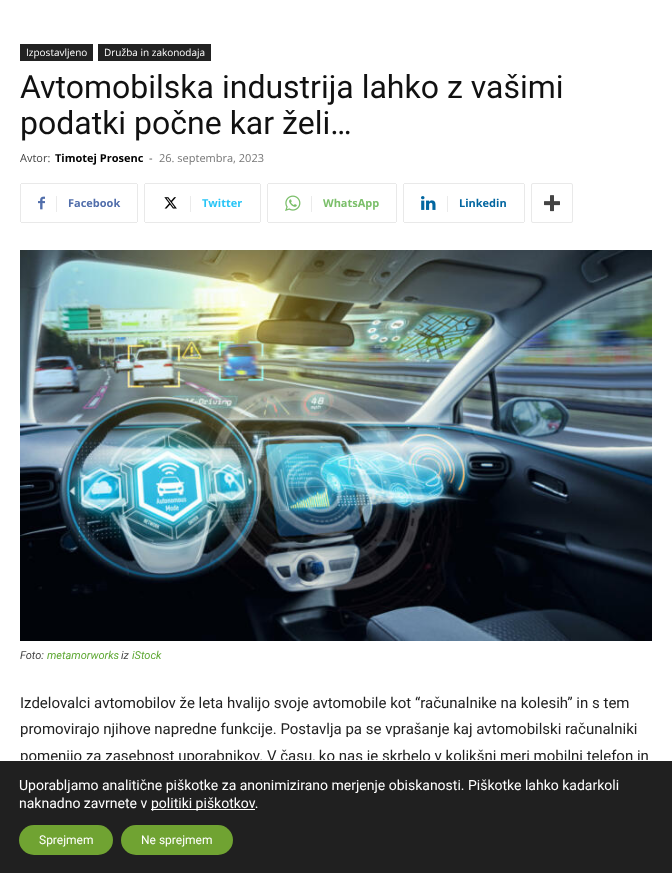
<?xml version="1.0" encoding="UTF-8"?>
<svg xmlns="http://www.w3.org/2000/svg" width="672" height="873">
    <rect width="100%" height="100%" fill="#FFFFFF"/>
    <rect x="20" y="44" width="73" height="17" fill="#222222"/>
    <text x="26" y="56" font-family="Open Sans" font-size="10" fill="#FFFFFF">Izpostavljeno</text>
    <rect x="98" y="44" width="113" height="17" fill="#222222"/>
    <text x="104" y="56" font-family="Open Sans" font-size="10" fill="#FFFFFF">Družba in zakonodaja</text>
    <text font-family="Roboto" font-size="32" fill="#111111">
        <tspan x="20" y="98">Avtomobilska industrija lahko z vašimi</tspan>
        <tspan x="20" y="134">podatki počne kar želi…</tspan>
    </text>
    <text x="20" y="162" font-family="Open Sans" font-size="11" fill="#444444">Avtor:</text>
    <text x="55" y="162" font-family="Open Sans" font-size="11" font-weight="700" fill="#000000">Timotej Prosenc</text>
    <text x="149" y="162" font-family="Open Sans" font-size="11" fill="#444444">-</text>
    <text x="159" y="162" font-family="Open Sans" font-size="11" fill="#767676">26. septembra, 2023</text>
    <rect x="20" y="184" width="1" height="38" fill="#E9E9E9"/>
    <image x="38" y="196" width="7" height="14" href="img_01.png"/>
    <rect x="21" y="183" width="116" height="1" fill="#E9E9E9"/>
    <rect x="137" y="184" width="1" height="38" fill="#E9E9E9"/>
    <rect x="21" y="222" width="116" height="1" fill="#E9E9E9"/>
    <rect x="56" y="196" width="1" height="16" fill="#EBEBEB"/>
    <text x="68" y="207" font-family="Open Sans" font-size="11" font-weight="700" fill="#516EAB">Facebook</text>
    <rect x="144" y="184" width="1" height="38" fill="#E9E9E9"/>
    <image x="164" y="197" width="13" height="12" href="img_02.png"/>
    <rect x="145" y="183" width="115" height="1" fill="#E9E9E9"/>
    <rect x="260" y="184" width="1" height="38" fill="#E9E9E9"/>
    <rect x="145" y="222" width="115" height="1" fill="#E9E9E9"/>
    <rect x="190" y="196" width="1" height="16" fill="#EBEBEB"/>
    <text x="202" y="207" font-family="Open Sans" font-size="11" font-weight="700" fill="#29C5F6">Twitter</text>
    <rect x="267" y="184" width="1" height="38" fill="#E9E9E9"/>
    <image x="285" y="195" width="16" height="16" href="img_03.png"/>
    <rect x="268" y="183" width="128" height="1" fill="#E9E9E9"/>
    <rect x="396" y="184" width="1" height="38" fill="#E9E9E9"/>
    <rect x="268" y="222" width="128" height="1" fill="#E9E9E9"/>
    <rect x="311" y="196" width="1" height="16" fill="#EBEBEB"/>
    <text x="323" y="207" font-family="Open Sans" font-size="11" font-weight="700" fill="#7BBF6A">WhatsApp</text>
    <rect x="403" y="184" width="1" height="38" fill="#E9E9E9"/>
    <image x="421" y="196" width="15" height="14" href="img_04.png"/>
    <rect x="404" y="183" width="120" height="1" fill="#E9E9E9"/>
    <rect x="524" y="184" width="1" height="38" fill="#E9E9E9"/>
    <rect x="404" y="222" width="120" height="1" fill="#E9E9E9"/>
    <rect x="447" y="196" width="1" height="16" fill="#EBEBEB"/>
    <text x="459" y="207" font-family="Open Sans" font-size="11" font-weight="700" fill="#0266A0">Linkedin</text>
    <rect x="531.5" y="183.5" width="41" height="39" rx="1.5" fill="none" stroke="#E9E9E9"/>
    <image x="544" y="195" width="16" height="17" href="img_05.png"/>
    <image x="20" y="250" width="632" height="391" href="img_06.png"/>
    <text x="20" y="659" font-family="Roboto" font-size="11" font-style="italic" fill="#444444">Foto:</text>
    <text x="47" y="659" font-family="Roboto" font-size="11" font-style="italic" fill="#5EA834">metamorworks</text>
    <text x="121" y="659" font-family="Roboto" font-size="11" font-style="italic" fill="#444444">iz</text>
    <text x="132" y="659" font-family="Roboto" font-size="11" font-style="italic" fill="#5EA834">iStock</text>
    <text font-family="Roboto" font-size="15" fill="#222222">
        <tspan x="20" y="708">Izdelovalci avtomobilov že leta hvalijo svoje avtomobile kot “računalnike na kolesih” in s tem</tspan>
        <tspan x="20" y="734">promovirajo njihove napredne funkcije. Postavlja pa se vprašanje kaj avtomobilski računalniki</tspan>
        <tspan x="20" y="761">pomenijo za zasebnost uporabnikov. V času, ko nas je skrbelo v kolikšni meri mobilni telefon in</tspan>
    </text>
    <rect x="0" y="761" width="672" height="112" fill="#202020"/>
    <rect x="21" y="760" width="627" height="1" fill="#FFFFFF"/>
    <text font-family="Roboto" font-size="14" fill="#FFFFFF">
        <tspan x="19" y="790">Uporabljamo analitične piškotke za anonimizirano merjenje obiskanosti. Piškotke lahko kadarkoli</tspan>
        <tspan x="19" y="808">naknadno zavrnete v</tspan>
    </text>
    <rect x="151" y="809" width="104" height="1" fill="#FFFFFF"/>
    <text x="151" y="808" font-family="Roboto" font-size="14" fill="#FFFFFF">politiki piškotkov.</text>
    <rect x="19" y="825" width="94" height="30" rx="15" fill="#70A332"/>
    <text x="39" y="844" font-family="Roboto" font-size="12" fill="#FFFFFF">Sprejmem</text>
    <rect x="121" y="825" width="112" height="30" rx="15" fill="#70A332"/>
    <text x="141" y="844" font-family="Roboto" font-size="12" fill="#FFFFFF">Ne sprejmem</text>
</svg>
